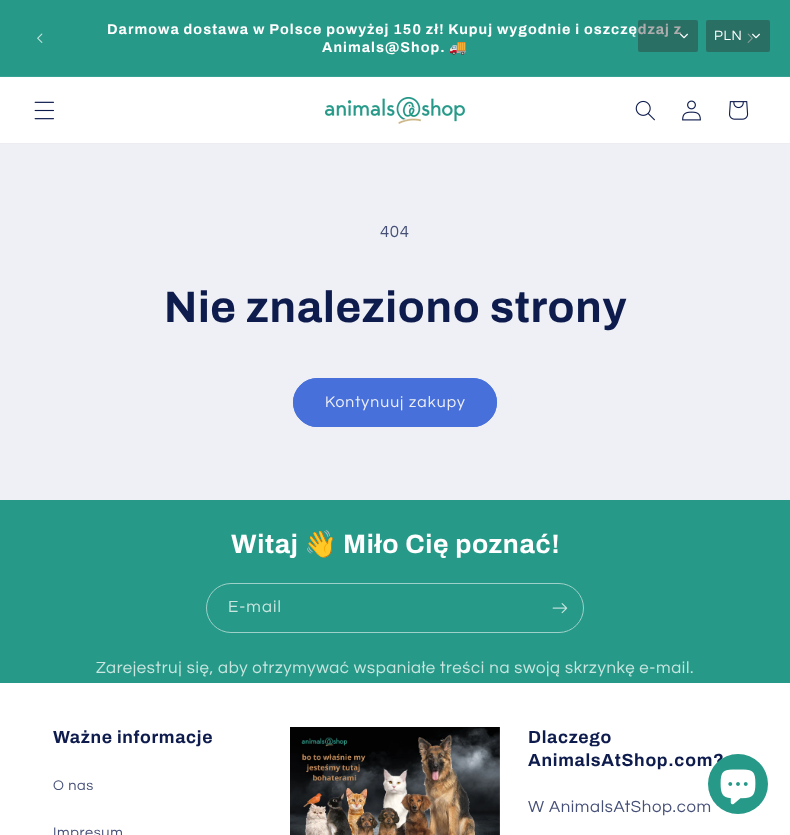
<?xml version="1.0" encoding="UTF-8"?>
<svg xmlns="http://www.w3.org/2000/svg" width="790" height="835">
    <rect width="100%" height="100%" fill="#EFF0F5"/>
    <rect x="0" y="0" width="790" height="76" fill="#279988"/>
    <rect x="0" y="76" width="790" height="1" fill="#38A192"/>
    <image x="37" y="33" width="6" height="10" href="img_01.png"/>
    <text x="107" y="34" font-family="Archivo" font-size="14.3" font-weight="700" letter-spacing="1.05" fill="#FFFFFF">Darmowa dostawa w Polsce powyżej 150 zł! Kupuj wygodnie i oszczędzaj z</text>
    <text x="322" y="52" font-family="Archivo" font-size="14.3" font-weight="700" letter-spacing="1.05" fill="#FFFFFF">Animals@Shop.</text>
    <text x="449" y="52" font-family="Noto Color Emoji" font-size="14.3" font-weight="700" letter-spacing="1.05" fill="#FFFFFF">🚚</text>
    <image x="747" y="33" width="6" height="10" href="img_02.png"/>
    <rect x="638" y="20" width="60" height="32" rx="2" fill="#303030" fill-opacity="0.4"/>
    <image x="680" y="33" width="8" height="6" href="img_03.png"/>
    <rect x="706" y="20" width="64" height="32" rx="2" fill="#303030" fill-opacity="0.4"/>
    <text x="714" y="40" font-family="Questrial" font-size="14" letter-spacing="0.63" fill="#FFFFFF">PLN</text>
    <image x="752" y="33" width="8" height="6" href="img_04.png"/>
    <rect x="0" y="77" width="790" height="66" fill="#FFFFFF"/>
    <rect x="0" y="143" width="790" height="1" fill="#ECEDF1"/>
    <image x="34" y="101" width="20" height="19" href="img_05.png"/>
    <image x="325" y="97" width="140" height="27" href="img_06.png"/>
    <image x="635" y="100" width="20" height="21" href="img_07.png"/>
    <image x="682" y="100" width="19" height="21" href="img_08.png"/>
    <image x="729" y="101" width="20" height="19" href="img_09.png"/>
    <text x="380" y="237" font-family="Questrial" font-size="16.8" letter-spacing="0.63" fill="#465077">404</text>
    <text x="164" y="322" font-family="Archivo" font-size="44" font-weight="700" letter-spacing="0.7" fill="#0E1B4D">Nie znaleziono strony</text>
    <rect x="293" y="378" width="204" height="49" rx="24.5" fill="#4770DB"/>
    <rect x="293.5" y="378.5" width="203" height="48" rx="24" fill="none" stroke="#4770DB"/>
    <text x="325" y="407" font-family="Questrial" font-size="15.75" letter-spacing="1.05" fill="#EFF0F5">Kontynuuj zakupy</text>
    <rect x="0" y="500" width="790" height="183" fill="#279988"/>
    <text x="231" y="553" font-family="Archivo" font-size="26.5" font-weight="700" letter-spacing="0.7" fill="#FFFFFF">Witaj</text>
    <text x="304" y="553" font-family="Noto Color Emoji" font-size="26.5" font-weight="700" letter-spacing="0.7" fill="#FFFFFF">👋</text>
    <text x="343" y="553" font-family="Archivo" font-size="26.5" font-weight="700" letter-spacing="0.7" fill="#FFFFFF">Miło Cię poznać!</text>
    <rect x="206.5" y="583.5" width="377" height="49" rx="24.5" fill="none" stroke="#9ED1C9"/>
    <text x="228" y="612" font-family="Questrial" font-size="16.8" letter-spacing="1.05" fill="#C9E6E1">E-mail</text>
    <image x="552" y="603" width="16" height="11" href="img_10.png"/>
    <text x="96" y="673" font-family="Questrial" font-size="16.8" letter-spacing="0.63" fill="#C9E6E1">Zarejestruj się, aby otrzymywać wspaniałe treści na swoją skrzynkę e-mail.</text>
    <rect x="0" y="683" width="790" height="152" fill="#FFFFFF"/>
    <text x="53" y="743" font-family="Archivo" font-size="17.6" font-weight="700" letter-spacing="0.7" fill="#0E1B4D">Ważne informacje</text>
    <text x="53" y="790" font-family="Questrial" font-size="14.5" letter-spacing="0.63" fill="#465077">O nas</text>
    <text x="53" y="837" font-family="Questrial" font-size="14.5" letter-spacing="0.63" fill="#465077">Impresum</text>
    <image x="290" y="727" width="210" height="108" href="img_11.png"/>
    <text font-family="Archivo" font-size="17.6" font-weight="700" letter-spacing="0.7" fill="#0E1B4D">
        <tspan x="528" y="743">Dlaczego</tspan>
        <tspan x="528" y="766">AnimalsAtShop.com?</tspan>
    </text>
    <text x="528" y="812" font-family="Questrial" font-size="16.8" letter-spacing="0.63" fill="#465077">W AnimalsAtShop.com</text>
    <circle cx="738" cy="784" r="30" fill="#279988"/>
    <image x="720" y="769" width="36" height="36" href="img_12.png"/>
</svg>
